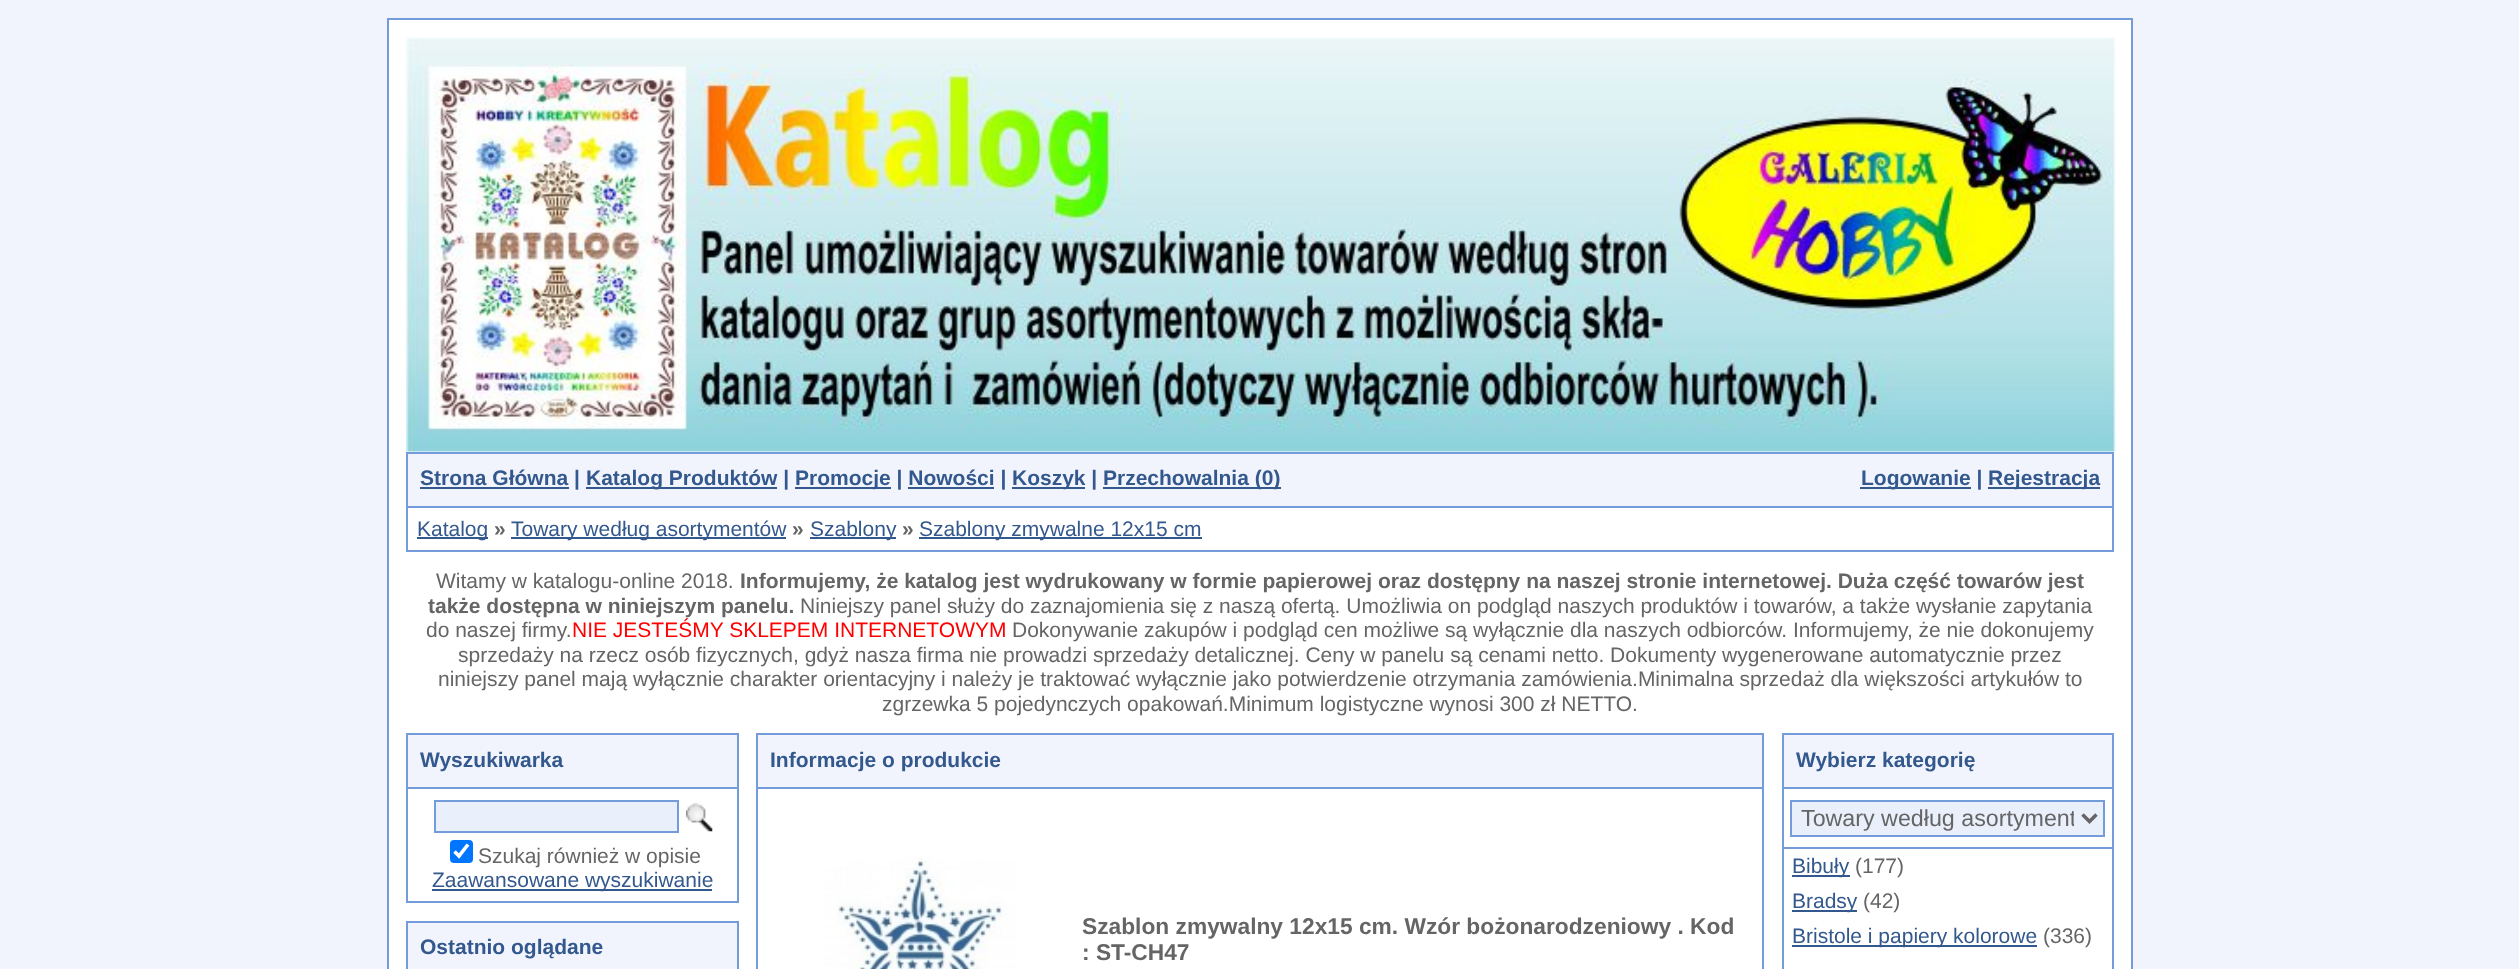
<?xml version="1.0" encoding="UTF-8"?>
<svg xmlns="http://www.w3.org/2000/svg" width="2519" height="969">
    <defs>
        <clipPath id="clip1"><rect x="1801" y="803" width="273" height="30"/></clipPath>
    </defs>
    <rect width="100%" height="100%" fill="#F1F4FD"/>
    <rect x="388" y="19" width="1744" height="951" fill="#FFFFFF" stroke="#749CDA" stroke-width="2"/>
    <image x="406" y="37" width="1710" height="415" href="img_01.png"/>
    <rect x="407" y="453" width="1706" height="54" fill="#F1F4FD" stroke="#749CDA" stroke-width="2"/>
    <rect x="420" y="487" width="149" height="2" fill="#33588D"/>
    <text x="420" y="485" font-family="Liberation Sans" font-size="21" font-weight="700" fill="#33588D">Strona Główna |</text>
    <rect x="586" y="487" width="191" height="2" fill="#33588D"/>
    <text x="586" y="485" font-family="Liberation Sans" font-size="21" font-weight="700" fill="#33588D">Katalog Produktów |</text>
    <rect x="795" y="487" width="96" height="2" fill="#33588D"/>
    <text x="795" y="485" font-family="Liberation Sans" font-size="21" font-weight="700" fill="#33588D">Promocje | Nowości |</text>
    <rect x="1012" y="487" width="73" height="2" fill="#33588D"/>
    <text x="1012" y="485" font-family="Liberation Sans" font-size="21" font-weight="700" fill="#33588D">Koszyk |</text>
    <rect x="1103" y="487" width="178" height="2" fill="#33588D"/>
    <text x="1103" y="485" font-family="Liberation Sans" font-size="21" font-weight="700" fill="#33588D">Przechowalnia (0)</text>
    <rect x="908" y="487" width="86" height="2" fill="#33588D"/>
    <rect x="1860" y="487" width="111" height="2" fill="#33588D"/>
    <text x="1861" y="485" font-family="Liberation Sans" font-size="21" font-weight="700" fill="#33588D">Logowanie |</text>
    <rect x="1988" y="487" width="112" height="2" fill="#33588D"/>
    <text x="1988" y="485" font-family="Liberation Sans" font-size="21" font-weight="700" fill="#33588D">Rejestracja</text>
    <rect x="2112" y="508" width="2" height="43" fill="#749CDA"/>
    <rect x="406" y="550" width="1708" height="2" fill="#749CDA"/>
    <rect x="406" y="508" width="2" height="43" fill="#749CDA"/>
    <rect x="417" y="537" width="71" height="2" fill="#33588D"/>
    <text x="417" y="536" font-family="Liberation Sans" font-size="21" fill="#33588D">Katalog</text>
    <text x="494" y="536" font-family="Liberation Sans" font-size="21" font-weight="700" fill="#656565">»</text>
    <rect x="511" y="537" width="275" height="2" fill="#33588D"/>
    <text x="511" y="536" font-family="Liberation Sans" font-size="21" fill="#33588D">Towary według asortymentów</text>
    <text x="792" y="536" font-family="Liberation Sans" font-size="21" font-weight="700" fill="#656565">»</text>
    <rect x="810" y="537" width="86" height="2" fill="#33588D"/>
    <text x="810" y="536" font-family="Liberation Sans" font-size="21" fill="#33588D">Szablony</text>
    <text x="902" y="536" font-family="Liberation Sans" font-size="21" font-weight="700" fill="#656565">»</text>
    <rect x="919" y="537" width="283" height="2" fill="#33588D"/>
    <text x="919" y="536" font-family="Liberation Sans" font-size="21" fill="#33588D">Szablony zmywalne 12x15 cm</text>
    <text x="436" y="588" font-family="Liberation Sans" font-size="21" fill="#656565">Witamy w katalogu-online 2018.</text>
    <text x="740" y="588" font-family="Liberation Sans" font-size="21" font-weight="700" fill="#656565">Informujemy, że katalog jest wydrukowany w formie papierowej oraz dostępny na naszej stronie internetowej. Duża część towarów jest</text>
    <text x="428" y="613" font-family="Liberation Sans" font-size="21" font-weight="700" fill="#656565">także dostępna w niniejszym panelu.</text>
    <text x="800" y="613" font-family="Liberation Sans" font-size="21" fill="#656565">Niniejszy panel służy do zaznajomienia się z naszą ofertą. Umożliwia on podgląd naszych produktów i towarów, a także wysłanie zapytania</text>
    <text x="426" y="637" font-family="Liberation Sans" font-size="21" fill="#656565">do naszej firmy.</text>
    <text x="572" y="637" font-family="Liberation Sans" font-size="21" fill="#FF0000">NIE JESTEŚMY SKLEPEM INTERNETOWYM</text>
    <text x="1012" y="637" font-family="Liberation Sans" font-size="21" fill="#656565">Dokonywanie zakupów i podgląd cen możliwe są wyłącznie dla naszych odbiorców. Informujemy, że nie dokonujemy</text>
    <text x="458" y="662" font-family="Liberation Sans" font-size="21" fill="#656565">sprzedaży na rzecz osób fizycznych, gdyż nasza firma nie prowadzi sprzedaży detalicznej. Ceny w panelu są cenami netto. Dokumenty wygenerowane automatycznie przez</text>
    <text x="438" y="686" font-family="Liberation Sans" font-size="21" fill="#656565">niniejszy panel mają wyłącznie charakter orientacyjny i należy je traktować wyłącznie jako potwierdzenie otrzymania zamówienia.Minimalna sprzedaż dla większości artykułów to</text>
    <text x="882" y="711" font-family="Liberation Sans" font-size="21" fill="#656565">zgrzewka 5 pojedynczych opakowań.Minimum logistyczne wynosi 300 zł NETTO.</text>
    <rect x="407" y="734" width="331" height="54" fill="#F1F4FD" stroke="#749CDA" stroke-width="2"/>
    <text x="420" y="767" font-family="Liberation Sans" font-size="21" font-weight="700" fill="#33588D">Wyszukiwarka</text>
    <rect x="737" y="789" width="2" height="114" fill="#749CDA"/>
    <rect x="406" y="901" width="333" height="2" fill="#749CDA"/>
    <rect x="406" y="789" width="2" height="114" fill="#749CDA"/>
    <rect x="435" y="801" width="243" height="31" fill="#EAEFFC" stroke="#749CDA" stroke-width="2"/>
    <image x="686" y="803" width="27" height="29" href="img_02.png"/>
    <rect x="450" y="840" width="23" height="23" rx="4" fill="#0075FF"/>
    <path d="M 454.5 851.5 L 459 856 L 468 844.5" fill="none" stroke="#FFFFFF" stroke-width="3.6"/>
    <text x="478" y="863" font-family="Liberation Sans" font-size="21" fill="#656565">Szukaj również w opisie</text>
    <rect x="432" y="889" width="280" height="2" fill="#33588D"/>
    <text x="432" y="887" font-family="Liberation Sans" font-size="21" fill="#33588D">Zaawansowane wyszukiwanie</text>
    <rect x="407" y="922" width="331" height="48" fill="#F1F4FD" stroke="#749CDA" stroke-width="2"/>
    <text x="420" y="954" font-family="Liberation Sans" font-size="21" font-weight="700" fill="#33588D">Ostatnio oglądane</text>
    <rect x="757" y="734" width="1006" height="54" fill="#F1F4FD" stroke="#749CDA" stroke-width="2"/>
    <text x="770" y="767" font-family="Liberation Sans" font-size="21" font-weight="700" fill="#33588D">Informacje o produkcie</text>
    <rect x="1762" y="789" width="2" height="180" fill="#749CDA"/>
    <rect x="756" y="789" width="2" height="180" fill="#749CDA"/>
    <image x="823" y="856" width="193" height="113" href="img_03.png"/>
    <text font-family="Liberation Sans" font-size="22.75" font-weight="700" fill="#656565">
        <tspan x="1082" y="934">Szablon zmywalny 12x15 cm. Wzór bożonarodzeniowy . Kod</tspan>
        <tspan x="1082" y="960">: ST-CH47</tspan>
    </text>
    <rect x="1783" y="734" width="330" height="54" fill="#F1F4FD" stroke="#749CDA" stroke-width="2"/>
    <text x="1796" y="767" font-family="Liberation Sans" font-size="21" font-weight="700" fill="#33588D">Wybierz kategorię</text>
    <rect x="2112" y="789" width="2" height="180" fill="#749CDA"/>
    <rect x="1782" y="847" width="332" height="2" fill="#749CDA"/>
    <rect x="1782" y="789" width="2" height="180" fill="#749CDA"/>
    <rect x="1791" y="801" width="313" height="35" fill="#EAEFFC" stroke="#749CDA" stroke-width="2"/>
    <path d="M 2082.5 814.5 L 2089.5 821.5 L 2096.5 814.5" fill="none" stroke="#656565" stroke-width="3.5"/>
    <g clip-path="url(#clip1)">
        <text x="1801" y="826" font-family="Liberation Sans" font-size="23.25" fill="#656565">Towary według asortyment</text>
    </g>
    <rect x="1792" y="875" width="58" height="2" fill="#33588D"/>
    <text x="1792" y="873" font-family="Liberation Sans" font-size="21" fill="#33588D">Bibuły</text>
    <text x="1855" y="873" font-family="Liberation Sans" font-size="21" fill="#656565">(177)</text>
    <rect x="1792" y="910" width="65" height="2" fill="#33588D"/>
    <text x="1792" y="908" font-family="Liberation Sans" font-size="21" fill="#33588D">Bradsy</text>
    <text x="1863" y="908" font-family="Liberation Sans" font-size="21" fill="#656565">(42)</text>
    <rect x="1792" y="945" width="245" height="2" fill="#33588D"/>
    <text x="1792" y="943" font-family="Liberation Sans" font-size="21" fill="#33588D">Bristole i papiery kolorowe</text>
    <text x="2043" y="943" font-family="Liberation Sans" font-size="21" fill="#656565">(336)</text>
</svg>
